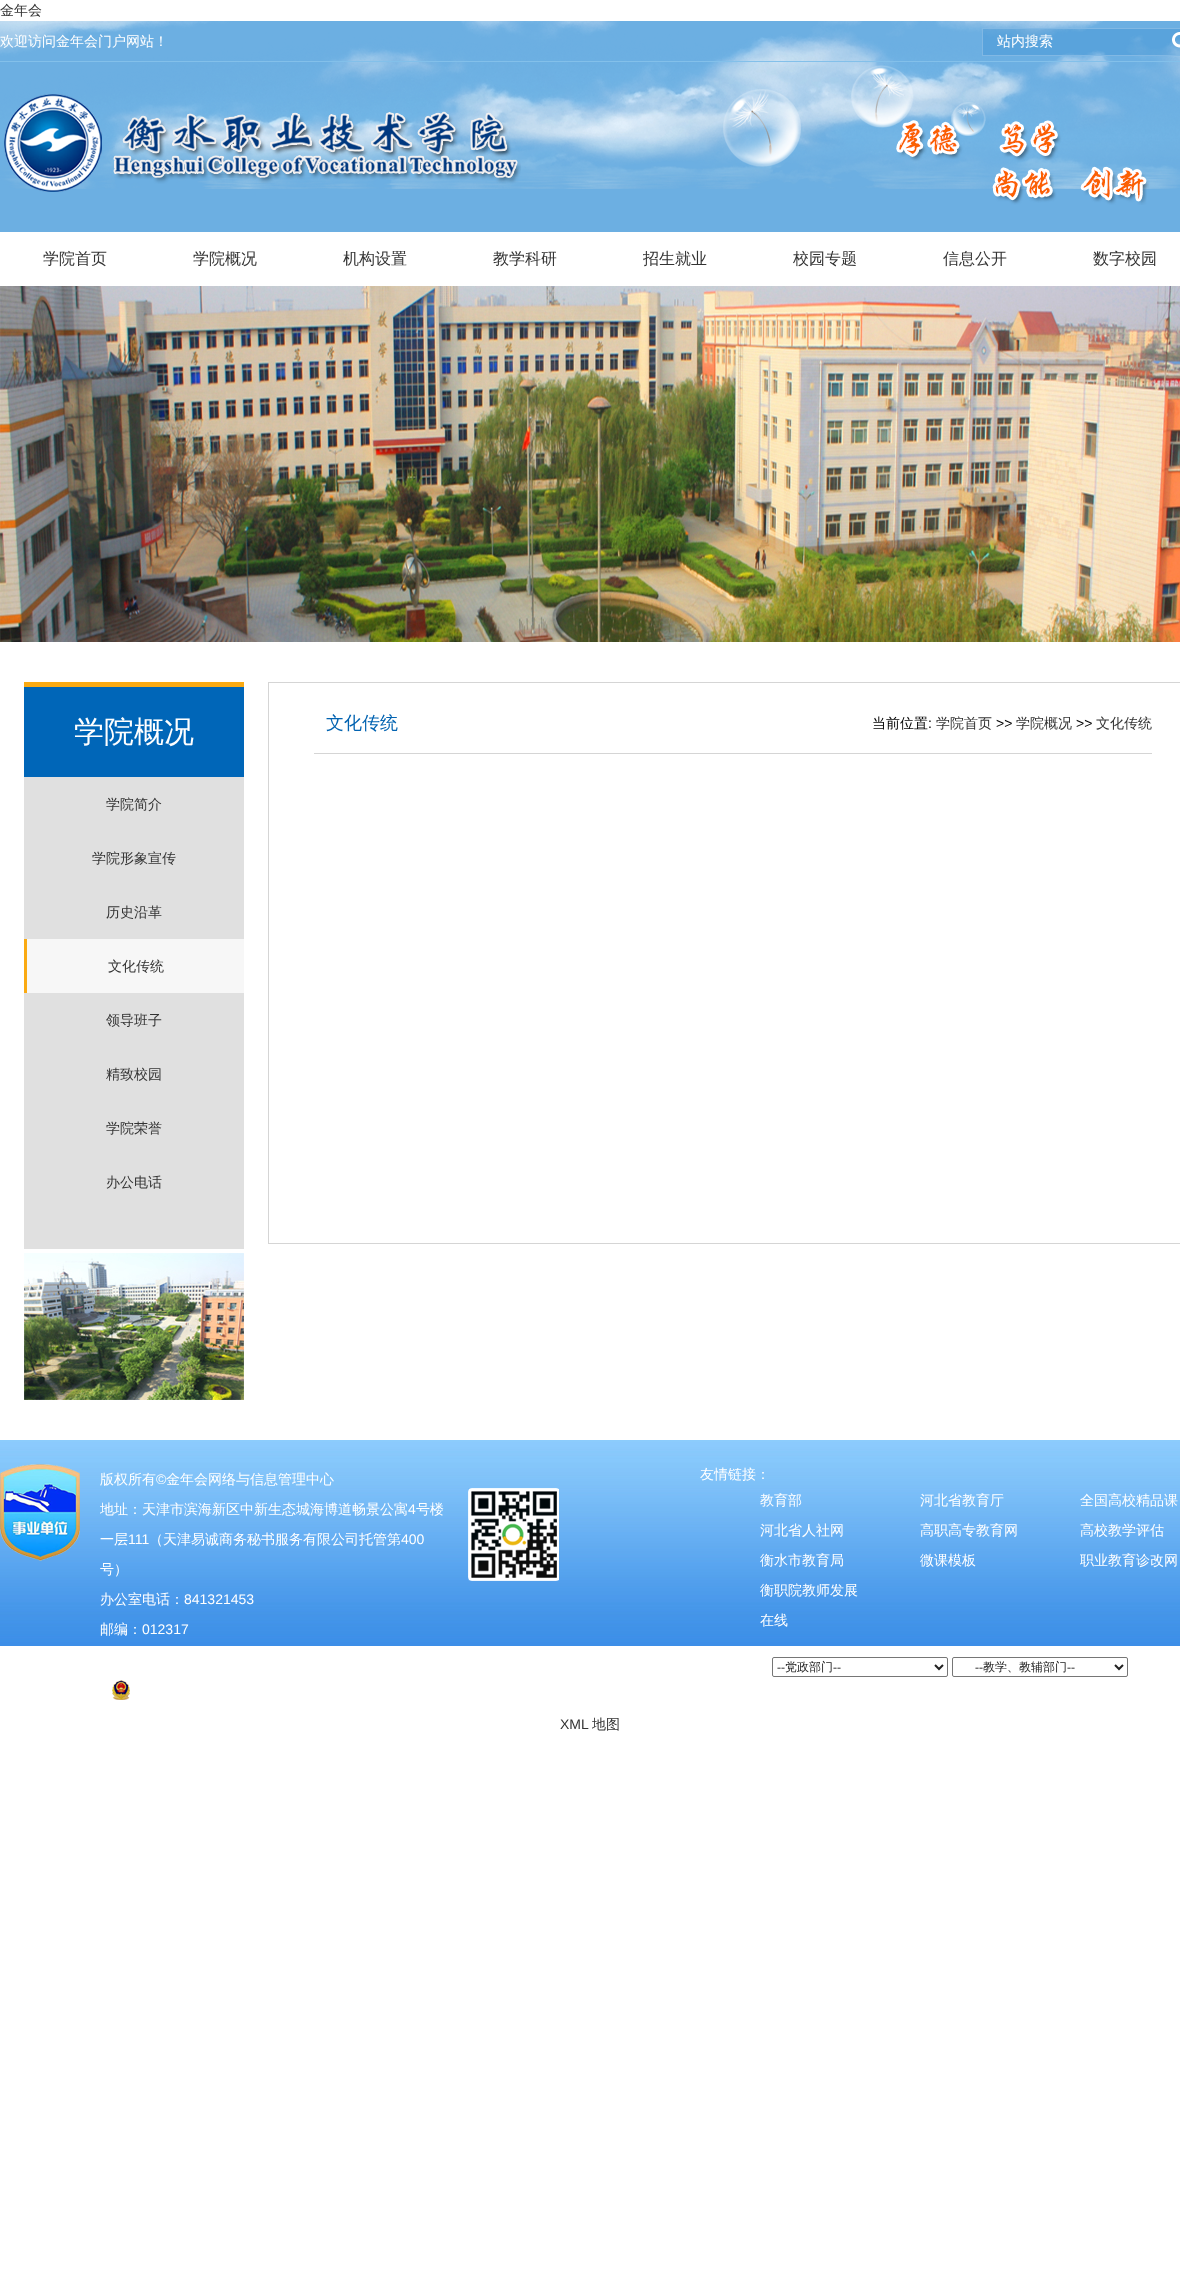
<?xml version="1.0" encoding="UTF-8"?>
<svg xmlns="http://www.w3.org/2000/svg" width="1180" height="2287">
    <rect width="100%" height="100%" fill="#FFFFFF"/>
    <text x="0" y="15" font-family="WenQuanYi Zen Hei" font-size="14" font-weight="500" fill="#333333">金年会</text>
    <rect x="0" y="21" width="1180" height="211" fill="#6CAFE2"/>
    <image x="0" y="21" width="1180" height="168" href="img_01.png"/>
    <rect x="0" y="61" width="1180" height="1" fill="#83C0EA"/>
    <text x="0" y="46" font-family="WenQuanYi Zen Hei" font-size="14" font-weight="500" fill="#FFFFFF">欢迎访问金年会门户网站！</text>
    <rect x="982.5" y="28.5" width="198" height="27" fill="#006BBE" fill-opacity="0.17" stroke="#81B8E4"/>
    <text x="997" y="46" font-family="WenQuanYi Zen Hei" font-size="14" font-weight="500" fill="#FFFFFF">站内搜索</text>
    <image x="1172" y="32" width="8" height="16" href="img_02.png"/>
    <image x="4" y="94" width="517" height="98" href="img_03.png"/>
    <image x="896" y="120" width="253" height="85" href="img_04.png"/>
    <text x="43" y="264" font-family="WenQuanYi Zen Hei" font-size="16" font-weight="500" fill="#333333">学院首页</text>
    <text x="193" y="264" font-family="WenQuanYi Zen Hei" font-size="16" font-weight="500" fill="#333333">学院概况</text>
    <text x="343" y="264" font-family="WenQuanYi Zen Hei" font-size="16" font-weight="500" fill="#333333">机构设置</text>
    <text x="493" y="264" font-family="WenQuanYi Zen Hei" font-size="16" font-weight="500" fill="#333333">教学科研</text>
    <text x="643" y="264" font-family="WenQuanYi Zen Hei" font-size="16" font-weight="500" fill="#333333">招生就业</text>
    <text x="793" y="264" font-family="WenQuanYi Zen Hei" font-size="16" font-weight="500" fill="#333333">校园专题</text>
    <text x="943" y="264" font-family="WenQuanYi Zen Hei" font-size="16" font-weight="500" fill="#333333">信息公开</text>
    <text x="1093" y="264" font-family="WenQuanYi Zen Hei" font-size="16" font-weight="500" fill="#333333">数字校园</text>
    <image x="0" y="286" width="1180" height="356" href="img_05.png"/>
    <rect x="24" y="687" width="220" height="90" fill="#0066B8"/>
    <rect x="24" y="682" width="220" height="5" fill="#FAAA13"/>
    <text x="74" y="742" font-family="WenQuanYi Zen Hei" font-size="30" font-weight="500" fill="#FFFFFF">学院概况</text>
    <rect x="24" y="777" width="220" height="472" fill="#E0E0E0"/>
    <text x="106" y="809" font-family="WenQuanYi Zen Hei" font-size="14" font-weight="500" fill="#333333">学院简介</text>
    <text x="92" y="863" font-family="WenQuanYi Zen Hei" font-size="14" font-weight="500" fill="#333333">学院形象宣传</text>
    <text x="106" y="917" font-family="WenQuanYi Zen Hei" font-size="14" font-weight="500" fill="#333333">历史沿革</text>
    <rect x="27" y="939" width="217" height="54" fill="#F7F7F7"/>
    <rect x="24" y="939" width="3" height="54" fill="#FAAA13"/>
    <text x="108" y="971" font-family="WenQuanYi Zen Hei" font-size="14" font-weight="500" fill="#333333">文化传统</text>
    <text x="106" y="1025" font-family="WenQuanYi Zen Hei" font-size="14" font-weight="500" fill="#333333">领导班子</text>
    <text x="106" y="1079" font-family="WenQuanYi Zen Hei" font-size="14" font-weight="500" fill="#333333">精致校园</text>
    <text x="106" y="1133" font-family="WenQuanYi Zen Hei" font-size="14" font-weight="500" fill="#333333">学院荣誉</text>
    <text x="106" y="1187" font-family="WenQuanYi Zen Hei" font-size="14" font-weight="500" fill="#333333">办公电话</text>
    <image x="24" y="1253" width="220" height="147" href="img_06.png"/>
    <rect x="268.5" y="682.5" width="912" height="561" fill="none" stroke="#D5D5D5"/>
    <rect x="314" y="753" width="838" height="1" fill="#D5D5D5"/>
    <text x="326" y="729" font-family="WenQuanYi Zen Hei" font-size="18" font-weight="500" fill="#0263B1">文化传统</text>
    <text x="872" y="728" font-family="WenQuanYi Zen Hei" font-size="14" font-weight="500" fill="#000000">当前位置</text>
    <text x="928" y="728" font-family="Liberation Sans" font-size="14" fill="#000000">:</text>
    <text x="936" y="728" font-family="WenQuanYi Zen Hei" font-size="14" font-weight="500" fill="#333333">学院首页</text>
    <text x="996" y="728" font-family="Liberation Sans" font-size="14" fill="#000000">&gt;&gt;</text>
    <text x="1016" y="728" font-family="WenQuanYi Zen Hei" font-size="14" font-weight="500" fill="#333333">学院概况</text>
    <text x="1076" y="728" font-family="Liberation Sans" font-size="14" fill="#000000">&gt;&gt;</text>
    <text x="1096" y="728" font-family="WenQuanYi Zen Hei" font-size="14" font-weight="500" fill="#333333">文化传统</text>
    <image x="0" y="1440" width="1180" height="206" href="img_07.png"/>
    <image x="0" y="1464" width="80" height="97" href="img_08.png"/>
    <text x="100" y="1484" font-family="WenQuanYi Zen Hei" font-size="14" font-weight="500" fill="#FFFFFF">版权所有</text>
    <text x="156" y="1484" font-family="Liberation Sans" font-size="14" fill="#FFFFFF">©</text>
    <text x="166" y="1484" font-family="WenQuanYi Zen Hei" font-size="14" font-weight="500" fill="#FFFFFF">金年会网络与信息管理中心</text>
    <text x="100" y="1514" font-family="WenQuanYi Zen Hei" font-size="14" font-weight="500" fill="#FFFFFF">地址：天津市滨海新区中新生态城海博道畅景公寓</text>
    <text x="408" y="1514" font-family="Liberation Sans" font-size="14" fill="#FFFFFF">4</text>
    <text x="416" y="1514" font-family="WenQuanYi Zen Hei" font-size="14" font-weight="500" fill="#FFFFFF">号楼</text>
    <text x="100" y="1544" font-family="WenQuanYi Zen Hei" font-size="14" font-weight="500" fill="#FFFFFF">一层</text>
    <text x="128" y="1544" font-family="Liberation Sans" font-size="14" fill="#FFFFFF">111</text>
    <text x="149" y="1544" font-family="WenQuanYi Zen Hei" font-size="14" font-weight="500" fill="#FFFFFF">（天津易诚商务秘书服务有限公司托管第</text>
    <text x="401" y="1544" font-family="Liberation Sans" font-size="14" fill="#FFFFFF">400</text>
    <text x="100" y="1574" font-family="WenQuanYi Zen Hei" font-size="14" font-weight="500" fill="#FFFFFF">号）</text>
    <text x="100" y="1604" font-family="WenQuanYi Zen Hei" font-size="14" font-weight="500" fill="#FFFFFF">办公室电话：</text>
    <text x="184" y="1604" font-family="Liberation Sans" font-size="14" fill="#FFFFFF">841321453</text>
    <text x="100" y="1634" font-family="WenQuanYi Zen Hei" font-size="14" font-weight="500" fill="#FFFFFF">邮编：</text>
    <text x="142" y="1634" font-family="Liberation Sans" font-size="14" fill="#FFFFFF">012317</text>
    <image x="112" y="1680" width="18" height="20" href="img_09.png"/>
    <image x="468" y="1488" width="91" height="93" href="img_10.png"/>
    <text x="700" y="1479" font-family="WenQuanYi Zen Hei" font-size="14" font-weight="500" fill="#FFFFFF">友情链接：</text>
    <text x="760" y="1505" font-family="WenQuanYi Zen Hei" font-size="14" font-weight="500" fill="#FFFFFF">教育部</text>
    <text x="920" y="1505" font-family="WenQuanYi Zen Hei" font-size="14" font-weight="500" fill="#FFFFFF">河北省教育厅</text>
    <text x="1080" y="1505" font-family="WenQuanYi Zen Hei" font-size="14" font-weight="500" fill="#FFFFFF">全国高校精品课</text>
    <text x="760" y="1535" font-family="WenQuanYi Zen Hei" font-size="14" font-weight="500" fill="#FFFFFF">河北省人社网</text>
    <text x="920" y="1535" font-family="WenQuanYi Zen Hei" font-size="14" font-weight="500" fill="#FFFFFF">高职高专教育网</text>
    <text x="1080" y="1535" font-family="WenQuanYi Zen Hei" font-size="14" font-weight="500" fill="#FFFFFF">高校教学评估</text>
    <text x="760" y="1565" font-family="WenQuanYi Zen Hei" font-size="14" font-weight="500" fill="#FFFFFF">衡水市教育局</text>
    <text x="920" y="1565" font-family="WenQuanYi Zen Hei" font-size="14" font-weight="500" fill="#FFFFFF">微课模板</text>
    <text x="1080" y="1565" font-family="WenQuanYi Zen Hei" font-size="14" font-weight="500" fill="#FFFFFF">职业教育诊改网</text>
    <text x="760" y="1595" font-family="WenQuanYi Zen Hei" font-size="14" font-weight="500" fill="#FFFFFF">衡职院教师发展</text>
    <text x="760" y="1625" font-family="WenQuanYi Zen Hei" font-size="14" font-weight="500" fill="#FFFFFF">在线</text>
    <rect x="772.5" y="1657.5" width="175" height="19" rx="1.5" fill="none" stroke="#767676"/>
    <path d="M 935 1665 L 939 1669 L 943 1665" fill="none" stroke="#222222" stroke-width="2"/>
    <text x="777" y="1671" font-family="Liberation Serif" font-size="12" fill="#222222">--</text>
    <text x="785" y="1671" font-family="WenQuanYi Zen Hei" font-size="12" font-weight="500" fill="#222222">党政部门</text>
    <text x="833" y="1671" font-family="Liberation Serif" font-size="12" fill="#222222">--</text>
    <rect x="952.5" y="1657.5" width="175" height="19" rx="1.5" fill="none" stroke="#767676"/>
    <path d="M 1115 1665 L 1119 1669 L 1123 1665" fill="none" stroke="#222222" stroke-width="2"/>
    <text x="975" y="1671" font-family="Liberation Serif" font-size="12" fill="#222222">--</text>
    <text x="983" y="1671" font-family="WenQuanYi Zen Hei" font-size="12" font-weight="500" fill="#222222">教学、教辅部门</text>
    <text x="1067" y="1671" font-family="Liberation Serif" font-size="12" fill="#222222">--</text>
    <text x="560" y="1729" font-family="Liberation Sans" font-size="14" fill="#333333">XML</text>
    <text x="592" y="1729" font-family="WenQuanYi Zen Hei" font-size="14" font-weight="500" fill="#333333">地图</text>
</svg>
